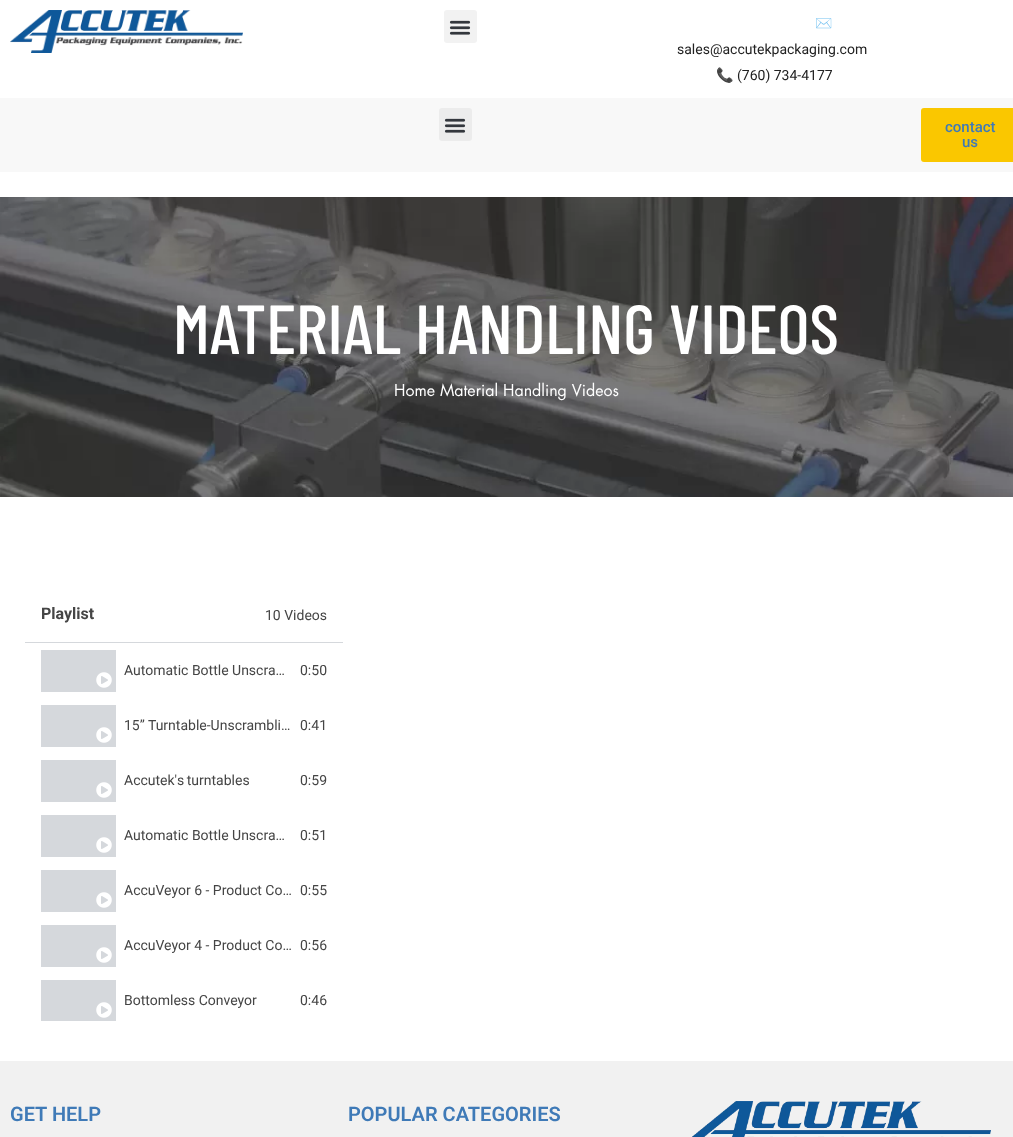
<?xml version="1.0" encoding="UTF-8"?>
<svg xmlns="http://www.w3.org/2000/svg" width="1013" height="1137">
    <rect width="100%" height="100%" fill="#FFFFFF"/>
    <image x="10" y="10" width="233" height="43" href="img_01.png"/>
    <rect x="444" y="10" width="33" height="33" rx="3" fill="#F2F2F2"/>
    <image x="449" y="20" width="22" height="15" href="img_02.png"/>
    <text x="815" y="28" font-family="Noto Color Emoji" font-size="14" fill="#222222">✉️</text>
    <text x="677" y="54" font-family="Roboto" font-size="14" fill="#222222">sales@accutekpackaging.com</text>
    <text x="716" y="80" font-family="Noto Color Emoji" font-size="14" fill="#222222">📞</text>
    <text x="737" y="80" font-family="Roboto" font-size="14" fill="#222222">(760) 734-4177</text>
    <rect x="0" y="98" width="1013" height="74" fill="#F8F8F8"/>
    <rect x="439" y="108" width="33" height="33" rx="3" fill="#ECECEC"/>
    <image x="444" y="118" width="22" height="15" href="img_03.png"/>
    <rect x="921" y="108" width="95" height="54" rx="3" fill="#FAC700"/>
    <text x="945" y="132" font-family="Roboto" font-size="15" font-weight="500" fill="#3F7AB7">contact</text>
    <text x="962" y="147" font-family="Roboto" font-size="15" font-weight="500" fill="#3F7AB7">us</text>
    <image x="0" y="197" width="1013" height="300" href="img_04.png"/>
    <text x="173" y="354" font-family="Barlow Condensed" font-size="69.25" font-weight="500" fill="#FFFFFF">MATERIAL HANDLING VIDEOS</text>
    <text x="394" y="396" font-family="Futura" font-size="16" fill="#FFFFFF">Home Material Handling Videos</text>
    <rect x="25" y="642" width="318" height="1" fill="#D5D8DC"/>
    <text x="41" y="619" font-family="Roboto" font-size="16" font-weight="700" fill="#454545">Playlist</text>
    <text x="265" y="620" font-family="Roboto" font-size="14" fill="#454545">10 Videos</text>
    <rect x="41" y="650" width="75" height="42" fill="#D5D8DC"/>
    <image x="96" y="672" width="16" height="16" href="img_05.png"/>
    <text x="124" y="675" font-family="Roboto" font-size="14" fill="#454545">Automatic Bottle Unscra…</text>
    <text x="300" y="675" font-family="Roboto" font-size="14" fill="#454545">0:50</text>
    <rect x="41" y="705" width="75" height="42" fill="#D5D8DC"/>
    <image x="96" y="727" width="16" height="16" href="img_05.png"/>
    <text x="124" y="730" font-family="Roboto" font-size="14" fill="#454545">15” Turntable-Unscrambli…</text>
    <text x="300" y="730" font-family="Roboto" font-size="14" fill="#454545">0:41</text>
    <rect x="41" y="760" width="75" height="42" fill="#D5D8DC"/>
    <image x="96" y="782" width="16" height="16" href="img_05.png"/>
    <text x="124" y="785" word-spacing="-1" font-family="Roboto" font-size="14" fill="#454545">Accutek's turntables</text>
    <text x="300" y="785" font-family="Roboto" font-size="14" fill="#454545">0:59</text>
    <rect x="41" y="815" width="75" height="42" fill="#D5D8DC"/>
    <image x="96" y="837" width="16" height="16" href="img_05.png"/>
    <text x="124" y="840" font-family="Roboto" font-size="14" fill="#454545">Automatic Bottle Unscra…</text>
    <text x="300" y="840" font-family="Roboto" font-size="14" fill="#454545">0:51</text>
    <rect x="41" y="870" width="75" height="42" fill="#D5D8DC"/>
    <image x="96" y="892" width="16" height="16" href="img_05.png"/>
    <text x="124" y="895" font-family="Roboto" font-size="14" fill="#454545">AccuVeyor 6 - Product Co…</text>
    <text x="300" y="895" font-family="Roboto" font-size="14" fill="#454545">0:55</text>
    <rect x="41" y="925" width="75" height="42" fill="#D5D8DC"/>
    <image x="96" y="947" width="16" height="16" href="img_05.png"/>
    <text x="124" y="950" font-family="Roboto" font-size="14" fill="#454545">AccuVeyor 4 - Product Co…</text>
    <text x="300" y="950" font-family="Roboto" font-size="14" fill="#454545">0:56</text>
    <rect x="41" y="980" width="75" height="41" fill="#D5D8DC"/>
    <image x="96" y="1002" width="16" height="16" href="img_05.png"/>
    <text x="124" y="1005" font-family="Roboto" font-size="14" fill="#454545">Bottomless Conveyor</text>
    <text x="300" y="1005" font-family="Roboto" font-size="14" fill="#454545">0:46</text>
    <rect x="0" y="1061" width="1013" height="76" fill="#F1F1F1"/>
    <text x="10" y="1121" font-family="Roboto" font-size="20" font-weight="600" fill="#3F7AB7">GET HELP</text>
    <text x="348" y="1121" font-family="Roboto" font-size="20" font-weight="600" fill="#3F7AB7">POPULAR CATEGORIES</text>
    <image x="692" y="1101" width="299" height="36" href="img_06.png"/>
</svg>
